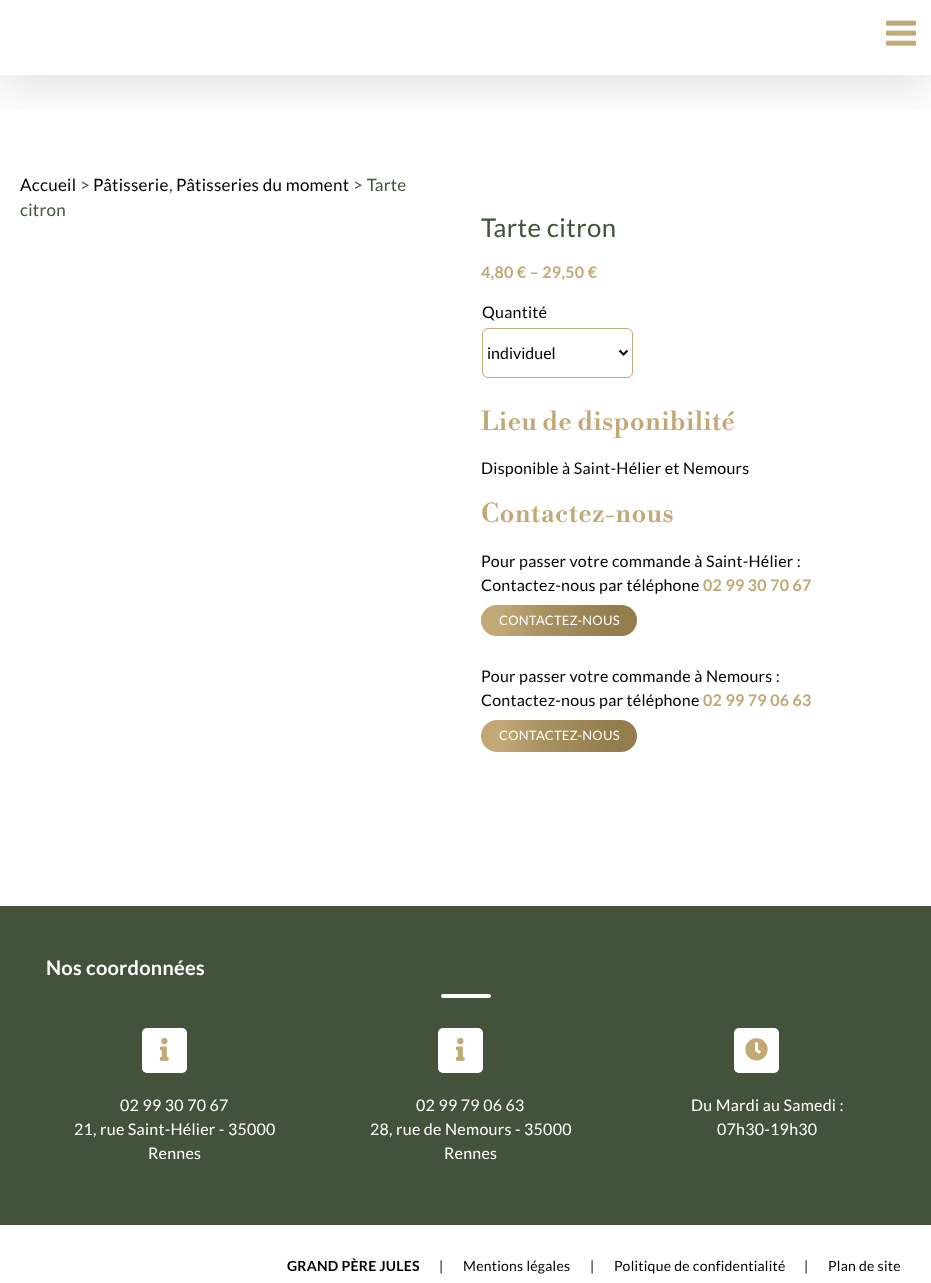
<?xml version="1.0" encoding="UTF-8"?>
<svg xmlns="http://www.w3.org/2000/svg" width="931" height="1283">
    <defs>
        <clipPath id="clip1"><rect x="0" y="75" width="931" height="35"/></clipPath>
        <filter id="blur1" x="-50%" y="-200%" width="200%" height="500%"><feGaussianBlur stdDeviation="25"/></filter>
        <linearGradient id="g1" gradientUnits="userSpaceOnUse" x1="480" y1="616" x2="638" y2="625"><stop offset="0.14" stop-color="#C1A875"/><stop offset="0.39" stop-color="#AA9261"/><stop offset="0.83" stop-color="#947C4D"/></linearGradient>
        <linearGradient id="g2" gradientUnits="userSpaceOnUse" x1="480" y1="732" x2="638" y2="740"><stop offset="0.14" stop-color="#C1A875"/><stop offset="0.39" stop-color="#AA9261"/><stop offset="0.83" stop-color="#947C4D"/></linearGradient>
    </defs>
    <rect width="100%" height="100%" fill="#FFFFFF"/>
    <g clip-path="url(#clip1)">
        <rect x="2" y="12" width="927" height="71" fill="#000000" fill-opacity="0.14" filter="url(#blur1)"/>
    </g>
    <image x="886" y="20" width="30" height="26" href="img_01.png"/>
    <text x="20" y="191" font-family="Lato" font-size="17" letter-spacing="0.25" fill="#000000">Accueil</text>
    <text x="80" y="191" font-family="Lato" font-size="17" letter-spacing="0.25" fill="#43523B">&gt;</text>
    <text x="93" y="191" font-family="Lato" font-size="17" letter-spacing="0.25" fill="#000000">Pâtisserie</text>
    <text x="176" y="191" font-family="Lato" font-size="17" letter-spacing="0.25" fill="#000000">Pâtisseries du moment</text>
    <text x="353" y="191" font-family="Lato" font-size="17" letter-spacing="0.25" fill="#43523B">&gt; Tarte</text>
    <text x="169" y="191" font-family="Lato" font-size="17" letter-spacing="0.25" fill="#43523B">,</text>
    <text x="20" y="216" font-family="Lato" font-size="17" letter-spacing="0.25" fill="#43523B">citron</text>
    <text x="481" y="237" font-family="Lato" font-size="25.75" letter-spacing="0.4" fill="#43523B">Tarte citron</text>
    <text x="481" y="278" font-family="Lato" font-size="16" font-weight="700" letter-spacing="0.25" fill="#C1A875">4,80 € – 29,50 €</text>
    <text x="482" y="318" font-family="Lato" font-size="16" letter-spacing="0.25" fill="#000000">Quantité</text>
    <rect x="482.5" y="328.5" width="150" height="49" rx="5.5" fill="none" stroke="#C1A875"/>
    <path d="M 619.5 350.5 L 623.5 354.5 L 627.5 350.5" fill="none" stroke="#000000" stroke-width="2"/>
    <text x="487" y="359" font-family="Lato" font-size="16" fill="#000000">individuel</text>
    <text x="481" y="430" font-family="Libre Bodoni" font-size="25.75" font-weight="600" letter-spacing="0.4" fill="#C1A875">Lieu de disponibilité</text>
    <text x="481" y="474" font-family="Lato" font-size="16" letter-spacing="0.25" fill="#000000">Disponible à Saint-Hélier et Nemours</text>
    <text x="481" y="522" font-family="Libre Bodoni" font-size="25.75" font-weight="600" letter-spacing="0.4" fill="#C1A875">Contactez-nous</text>
    <text font-family="Lato" font-size="16" letter-spacing="0.25" fill="#000000">
        <tspan x="481" y="567">Pour passer votre commande à Saint-Hélier :</tspan>
        <tspan x="481" y="591">Contactez-nous par téléphone</tspan>
    </text>
    <text x="703" y="591" font-family="Lato" font-size="16" font-weight="700" letter-spacing="0.25" fill="#C1A875">02 99 30 70 67</text>
    <rect x="481" y="605" width="156" height="31" rx="15.5" fill="url(#g1)"/>
    <text x="499" y="625" font-family="Lato" font-size="13" letter-spacing="0.25" fill="#FFFFFF">CONTACTEZ-NOUS</text>
    <text font-family="Lato" font-size="16" letter-spacing="0.25" fill="#000000">
        <tspan x="481" y="682">Pour passer votre commande à Nemours :</tspan>
        <tspan x="481" y="706">Contactez-nous par téléphone</tspan>
    </text>
    <text x="703" y="706" font-family="Lato" font-size="16" font-weight="700" letter-spacing="0.25" fill="#C1A875">02 99 79 06 63</text>
    <rect x="481" y="720" width="156" height="32" rx="16" fill="url(#g2)"/>
    <text x="499" y="740" font-family="Lato" font-size="13" letter-spacing="0.25" fill="#FFFFFF">CONTACTEZ-NOUS</text>
    <rect x="0" y="906" width="931" height="319" fill="#43523B"/>
    <text x="46" y="975" font-family="Lato" font-size="20" font-weight="700" letter-spacing="0.25" fill="#FFFFFF">Nos coordonnées</text>
    <rect x="441" y="994" width="50" height="4" rx="2" fill="#FFFFFF"/>
    <rect x="142" y="1028" width="45" height="45" rx="5" fill="#FFFFFF"/>
    <image x="160" y="1037" width="9" height="24" href="img_02.png"/>
    <text x="120" y="1111" font-family="Lato" font-size="16" letter-spacing="0.25" fill="#FFFFFF">02 99 30 70 67</text>
    <text x="74" y="1135" font-family="Lato" font-size="16" letter-spacing="0.25" fill="#FFFFFF">21, rue Saint-Hélier - 35000</text>
    <text x="148" y="1159" font-family="Lato" font-size="16" letter-spacing="0.25" fill="#FFFFFF">Rennes</text>
    <rect x="438" y="1028" width="45" height="45" rx="5" fill="#FFFFFF"/>
    <image x="456" y="1037" width="9" height="24" href="img_02.png"/>
    <text x="416" y="1111" font-family="Lato" font-size="16" letter-spacing="0.25" fill="#FFFFFF">02 99 79 06 63</text>
    <text x="370" y="1135" font-family="Lato" font-size="16" letter-spacing="0.25" fill="#FFFFFF">28, rue de Nemours - 35000</text>
    <text x="444" y="1159" font-family="Lato" font-size="16" letter-spacing="0.25" fill="#FFFFFF">Rennes</text>
    <rect x="734" y="1028" width="45" height="45" rx="5" fill="#FFFFFF"/>
    <image x="745" y="1038" width="23" height="23" href="img_03.png"/>
    <text x="691" y="1111" font-family="Lato" font-size="16" letter-spacing="0.25" fill="#FFFFFF">Du Mardi au Samedi :</text>
    <text x="717" y="1135" font-family="Lato" font-size="16" letter-spacing="0.25" fill="#FFFFFF">07h30-19h30</text>
    <text x="287" y="1271" font-family="Lato" font-size="14" font-weight="700" letter-spacing="0.25" fill="#000000">GRAND PÈRE JULES</text>
    <text x="439" y="1271" font-family="Lato" font-size="14" letter-spacing="0.25" fill="#000000">|</text>
    <text x="463" y="1271" font-family="Lato" font-size="14" letter-spacing="0.25" fill="#000000">Mentions légales</text>
    <text x="590" y="1271" font-family="Lato" font-size="14" letter-spacing="0.25" fill="#000000">|</text>
    <text x="614" y="1271" font-family="Lato" font-size="14" letter-spacing="0.25" fill="#000000">Politique de confidentialité</text>
    <text x="804" y="1271" font-family="Lato" font-size="14" letter-spacing="0.25" fill="#000000">|</text>
    <text x="828" y="1271" font-family="Lato" font-size="14" letter-spacing="0.25" fill="#000000">Plan de site</text>
</svg>
